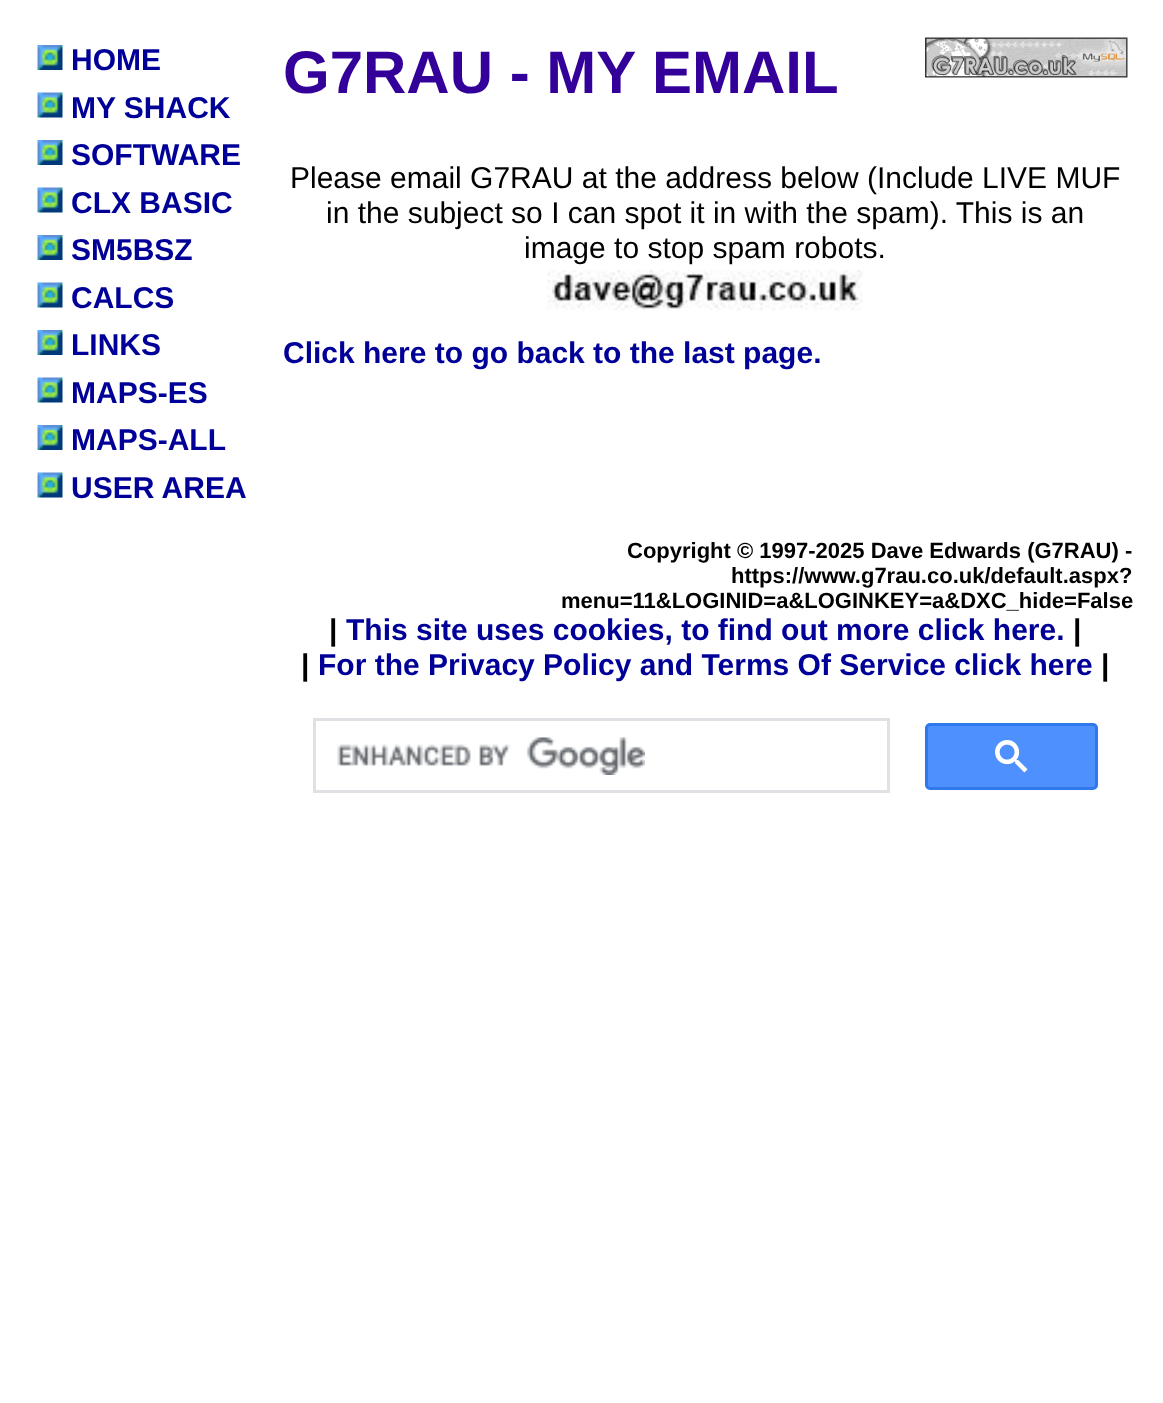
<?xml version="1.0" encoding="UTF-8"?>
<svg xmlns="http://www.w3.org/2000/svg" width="1163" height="1403">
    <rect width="100%" height="100%" fill="#FFFFFF"/>
    <image x="37" y="45" width="26" height="25" href="img_01.png"/>
    <text x="71" y="70" font-family="Liberation Sans" font-size="30" font-weight="700" fill="#000099">HOME</text>
    <image x="37" y="92" width="26" height="26" href="img_02.png"/>
    <text x="71" y="118" font-family="Liberation Sans" font-size="30" font-weight="700" fill="#000099">MY SHACK</text>
    <image x="37" y="140" width="26" height="25" href="img_01.png"/>
    <text x="71" y="165" font-family="Liberation Sans" font-size="30" font-weight="700" fill="#000099">SOFTWARE</text>
    <image x="37" y="187" width="26" height="26" href="img_02.png"/>
    <text x="71" y="213" font-family="Liberation Sans" font-size="30" font-weight="700" fill="#000099">CLX BASIC</text>
    <image x="37" y="235" width="26" height="25" href="img_01.png"/>
    <text x="71" y="260" font-family="Liberation Sans" font-size="30" font-weight="700" fill="#000099">SM5BSZ</text>
    <image x="37" y="282" width="26" height="26" href="img_03.png"/>
    <text x="71" y="308" font-family="Liberation Sans" font-size="30" font-weight="700" fill="#000099">CALCS</text>
    <image x="37" y="330" width="26" height="25" href="img_01.png"/>
    <text x="71" y="355" font-family="Liberation Sans" font-size="30" font-weight="700" fill="#000099">LINKS</text>
    <image x="37" y="377" width="26" height="26" href="img_02.png"/>
    <text x="71" y="403" font-family="Liberation Sans" font-size="30" font-weight="700" fill="#000099">MAPS-ES</text>
    <image x="37" y="425" width="26" height="25" href="img_01.png"/>
    <text x="71" y="450" font-family="Liberation Sans" font-size="30" font-weight="700" fill="#000099">MAPS-ALL</text>
    <image x="37" y="472" width="26" height="26" href="img_02.png"/>
    <text x="71" y="498" font-family="Liberation Sans" font-size="30" font-weight="700" fill="#000099">USER AREA</text>
    <text x="283" y="93" font-family="Liberation Sans" font-size="60" font-weight="700" fill="#330099">G7RAU - MY EMAIL</text>
    <image x="925" y="37" width="203" height="41" href="img_04.png"/>
    <text x="290" y="188" font-family="Liberation Sans" font-size="30" fill="#000000">Please email G7RAU at the address below (Include LIVE MUF</text>
    <text x="326" y="223" font-family="Liberation Sans" font-size="30" fill="#000000">in the subject so I can spot it in with the spam). This is an</text>
    <text x="524" y="258" font-family="Liberation Sans" font-size="30" fill="#000000">image to stop spam robots.</text>
    <image x="547" y="270" width="316" height="41" href="img_05.png"/>
    <text x="283" y="363" font-family="Liberation Sans" font-size="30" font-weight="700" fill="#000099">Click here to go back to the last page.</text>
    <text x="627" y="558" font-family="Liberation Sans" font-size="22" font-weight="700" fill="#000000">Copyright © 1997-2025 Dave Edwards (G7RAU) -</text>
    <text x="731" y="583" font-family="Liberation Sans" font-size="22" font-weight="700" fill="#000000">https://www.g7rau.co.uk/default.aspx?</text>
    <text x="561" y="608" font-family="Liberation Sans" font-size="22" font-weight="700" fill="#000000">menu=11&amp;LOGINID=a&amp;LOGINKEY=a&amp;DXC_hide=False</text>
    <text x="329" y="640" font-family="Liberation Sans" font-size="30" font-weight="700" fill="#000000">|</text>
    <text x="346" y="640" font-family="Liberation Sans" font-size="30" font-weight="700" fill="#000099">This site uses cookies, to find out more click here.</text>
    <text x="1073" y="640" font-family="Liberation Sans" font-size="30" font-weight="700" fill="#000000">|</text>
    <text x="301" y="675" font-family="Liberation Sans" font-size="30" font-weight="700" fill="#000000">|</text>
    <text x="318" y="675" font-family="Liberation Sans" font-size="30" font-weight="700" fill="#000099">For the Privacy Policy and Terms Of Service click here</text>
    <text x="1101" y="675" font-family="Liberation Sans" font-size="30" font-weight="700" fill="#000000">|</text>
    <rect x="314.5" y="719.5" width="574" height="72" fill="none" stroke="#DFE1E5" stroke-width="3"/>
    <image x="337" y="737" width="308" height="38" href="img_06.png"/>
    <rect x="926.5" y="724.5" width="170" height="64" rx="3.5" fill="#4D90FE" stroke="#3079ED" stroke-width="3"/>
    <image x="995" y="740" width="33" height="33" href="img_07.png"/>
</svg>
